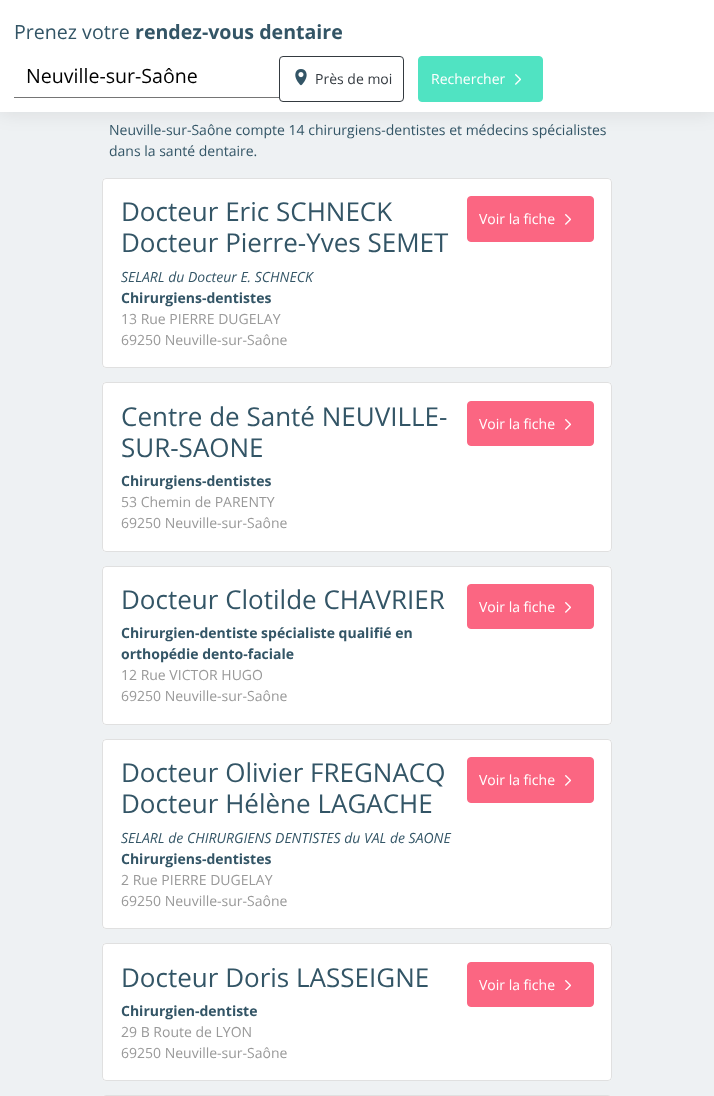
<?xml version="1.0" encoding="UTF-8"?>
<svg xmlns="http://www.w3.org/2000/svg" width="714" height="1096">
    <defs>
        <filter id="blur1" x="-50%" y="-200%" width="200%" height="500%"><feGaussianBlur stdDeviation="10"/></filter>
    </defs>
    <rect width="100%" height="100%" fill="#EEF1F3"/>
    <rect x="0" y="0" width="714" height="112" fill="#000000" fill-opacity="0.1" filter="url(#blur1)"/>
    <rect x="0" y="0" width="714" height="112" fill="#FFFFFF"/>
    <text x="14" y="39" font-family="Open Sans" font-size="19.6" fill="#335566">Prenez votre</text>
    <text x="135" y="39" font-family="Open Sans" font-size="19.6" font-weight="700" fill="#335566">rendez-vous dentaire</text>
    <rect x="14" y="97" width="265" height="1" fill="#757575"/>
    <text x="26" y="83" font-family="Open Sans" font-size="19.6" fill="#000000">Neuville-sur-Saône</text>
    <rect x="279.5" y="56.5" width="124" height="45" rx="3.5" fill="none" stroke="#343A40"/>
    <image x="295" y="69" width="12" height="17" href="img_01.png"/>
    <text x="315" y="84" font-family="Open Sans" font-size="14" fill="#343A40">Près de moi</text>
    <rect x="418.5" y="56.5" width="124" height="45" rx="3.5" fill="#50E3C2" stroke="#50E3C2"/>
    <text x="431" y="84" font-family="Open Sans" font-size="14" fill="#FFFFFF">Rechercher</text>
    <image x="515" y="74" width="6" height="11" href="img_02.png"/>
    <text font-family="Open Sans" font-size="14" fill="#335566">
        <tspan x="109" y="135">Neuville-sur-Saône compte 14 chirurgiens-dentistes et médecins spécialistes</tspan>
        <tspan x="109" y="156">dans la santé dentaire.</tspan>
    </text>
    <rect x="102" y="178" width="510" height="190" rx="4" fill="#FFFFFF"/>
    <rect x="102.5" y="178.5" width="509" height="189" rx="3.5" fill="none" stroke="#000000" stroke-opacity="0.12"/>
    <text font-family="Open Sans" font-size="26" fill="#335566">
        <tspan x="121" y="221">Docteur Eric SCHNECK</tspan>
        <tspan x="121" y="252">Docteur Pierre-Yves SEMET</tspan>
    </text>
    <text x="121" y="282" font-family="Open Sans" font-size="14" font-style="italic" fill="#335566">SELARL du Docteur E. SCHNECK</text>
    <text x="121" y="303" font-family="Open Sans" font-size="14" font-weight="700" fill="#335566">Chirurgiens-dentistes</text>
    <text font-family="Open Sans" font-size="14" fill="#999999">
        <tspan x="121" y="324">13 Rue PIERRE DUGELAY</tspan>
        <tspan x="121" y="345">69250 Neuville-sur-Saône</tspan>
    </text>
    <rect x="467.5" y="196.5" width="126" height="45" rx="3.5" fill="#FB6682" stroke="#FB6682"/>
    <text x="479" y="224" font-family="Open Sans" font-size="14" fill="#FFFFFF">Voir la fiche</text>
    <image x="565" y="214" width="6" height="11" href="img_03.png"/>
    <rect x="102" y="382" width="510" height="170" rx="4" fill="#FFFFFF"/>
    <rect x="102.5" y="382.5" width="509" height="169" rx="3.5" fill="none" stroke="#000000" stroke-opacity="0.12"/>
    <text font-family="Open Sans" font-size="26" fill="#335566">
        <tspan x="121" y="426">Centre de Santé NEUVILLE-</tspan>
        <tspan x="121" y="457">SUR-SAONE</tspan>
    </text>
    <text x="121" y="486" font-family="Open Sans" font-size="14" font-weight="700" fill="#335566">Chirurgiens-dentistes</text>
    <text font-family="Open Sans" font-size="14" fill="#999999">
        <tspan x="121" y="507">53 Chemin de PARENTY</tspan>
        <tspan x="121" y="528">69250 Neuville-sur-Saône</tspan>
    </text>
    <rect x="467.5" y="401.5" width="126" height="44" rx="3.5" fill="#FB6682" stroke="#FB6682"/>
    <text x="479" y="429" font-family="Open Sans" font-size="14" fill="#FFFFFF">Voir la fiche</text>
    <image x="565" y="419" width="6" height="11" href="img_03.png"/>
    <rect x="102" y="566" width="510" height="159" rx="4" fill="#FFFFFF"/>
    <rect x="102.5" y="566.5" width="509" height="158" rx="3.5" fill="none" stroke="#000000" stroke-opacity="0.12"/>
    <text x="121" y="609" font-family="Open Sans" font-size="26" fill="#335566">Docteur Clotilde CHAVRIER</text>
    <text font-family="Open Sans" font-size="14" font-weight="700" fill="#335566">
        <tspan x="121" y="638">Chirurgien-dentiste spécialiste qualifié en</tspan>
        <tspan x="121" y="659">orthopédie dento-faciale</tspan>
    </text>
    <text font-family="Open Sans" font-size="14" fill="#999999">
        <tspan x="121" y="680">12 Rue VICTOR HUGO</tspan>
        <tspan x="121" y="701">69250 Neuville-sur-Saône</tspan>
    </text>
    <rect x="467.5" y="584.5" width="126" height="44" rx="3.5" fill="#FB6682" stroke="#FB6682"/>
    <text x="479" y="612" font-family="Open Sans" font-size="14" fill="#FFFFFF">Voir la fiche</text>
    <image x="565" y="602" width="6" height="11" href="img_03.png"/>
    <rect x="102" y="739" width="510" height="190" rx="4" fill="#FFFFFF"/>
    <rect x="102.5" y="739.5" width="509" height="189" rx="3.5" fill="none" stroke="#000000" stroke-opacity="0.12"/>
    <text font-family="Open Sans" font-size="26" fill="#335566">
        <tspan x="121" y="782">Docteur Olivier FREGNACQ</tspan>
        <tspan x="121" y="813">Docteur Hélène LAGACHE</tspan>
    </text>
    <text x="121" y="843" font-family="Open Sans" font-size="14" font-style="italic" fill="#335566">SELARL de CHIRURGIENS DENTISTES du VAL de SAONE</text>
    <text x="121" y="864" font-family="Open Sans" font-size="14" font-weight="700" fill="#335566">Chirurgiens-dentistes</text>
    <text font-family="Open Sans" font-size="14" fill="#999999">
        <tspan x="121" y="885">2 Rue PIERRE DUGELAY</tspan>
        <tspan x="121" y="906">69250 Neuville-sur-Saône</tspan>
    </text>
    <rect x="467.5" y="757.5" width="126" height="45" rx="3.5" fill="#FB6682" stroke="#FB6682"/>
    <text x="479" y="785" font-family="Open Sans" font-size="14" fill="#FFFFFF">Voir la fiche</text>
    <image x="565" y="775" width="6" height="11" href="img_03.png"/>
    <rect x="102" y="943" width="510" height="138" rx="4" fill="#FFFFFF"/>
    <rect x="102.5" y="943.5" width="509" height="137" rx="3.5" fill="none" stroke="#000000" stroke-opacity="0.12"/>
    <text x="121" y="987" font-family="Open Sans" font-size="26" fill="#335566">Docteur Doris LASSEIGNE</text>
    <text x="121" y="1016" font-family="Open Sans" font-size="14" font-weight="700" fill="#335566">Chirurgien-dentiste</text>
    <text font-family="Open Sans" font-size="14" fill="#999999">
        <tspan x="121" y="1037">29 B Route de LYON</tspan>
        <tspan x="121" y="1058">69250 Neuville-sur-Saône</tspan>
    </text>
    <rect x="467.5" y="962.5" width="126" height="44" rx="3.5" fill="#FB6682" stroke="#FB6682"/>
    <text x="479" y="990" font-family="Open Sans" font-size="14" fill="#FFFFFF">Voir la fiche</text>
    <image x="565" y="980" width="6" height="10" href="img_04.png"/>
    <rect x="102" y="1095" width="510" height="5" rx="4" fill="#FFFFFF"/>
    <rect x="102.5" y="1095.5" width="509" height="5" rx="3.5" fill="none" stroke="#000000" stroke-opacity="0.12"/>
</svg>
